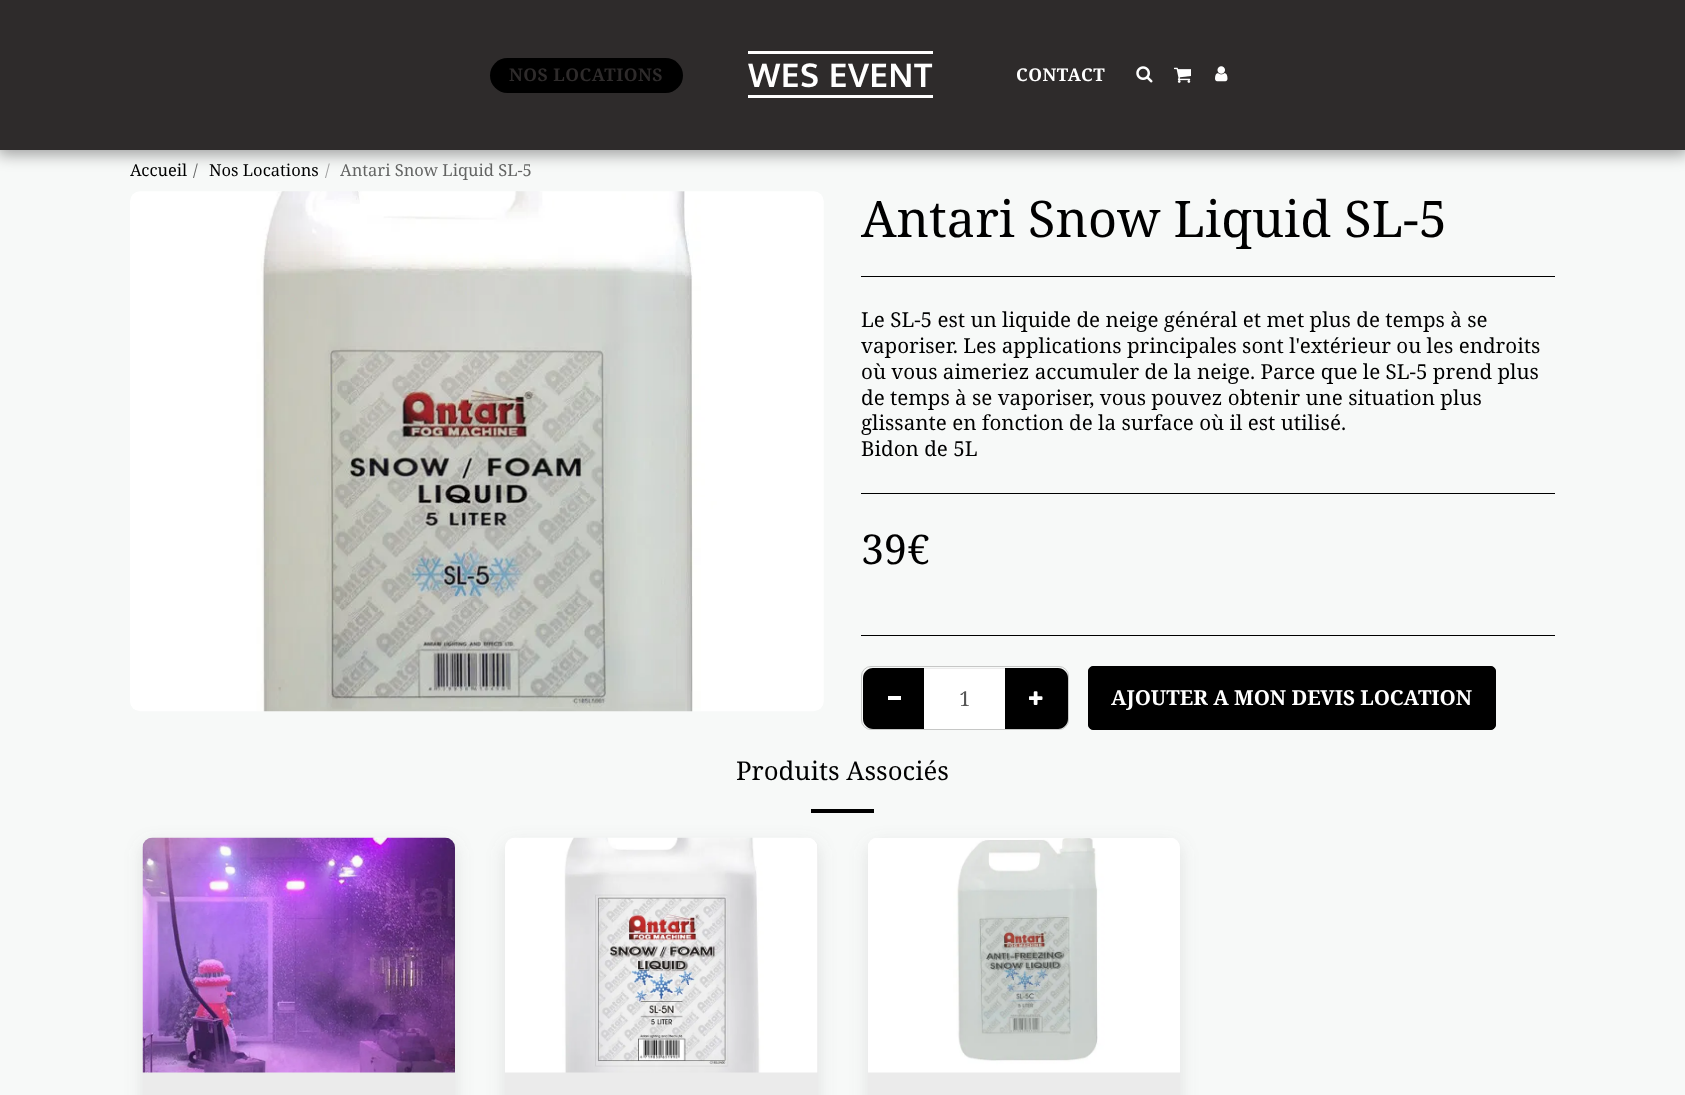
<?xml version="1.0" encoding="UTF-8"?>
<svg xmlns="http://www.w3.org/2000/svg" width="1685" height="1095">
    <defs>
        <filter id="blur1" x="-50%" y="-200%" width="200%" height="500%"><feGaussianBlur stdDeviation="7.5"/></filter>
        <filter id="blur2" x="-50%" y="-200%" width="200%" height="500%"><feGaussianBlur stdDeviation="9"/></filter>
    </defs>
    <rect width="100%" height="100%" fill="#F7F9F8"/>
    <rect x="-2" y="0" width="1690" height="155" fill="#000000" fill-opacity="0.35" filter="url(#blur1)"/>
    <rect x="0" y="0" width="1685" height="150" fill="#2E2B2B"/>
    <rect x="490" y="58" width="193" height="35" rx="17.5" fill="#000000"/>
    <text x="509" y="81" font-family="Noto Serif" font-size="17.5" font-weight="700" letter-spacing="0.5" fill="#2E2B2B">NOS LOCATIONS</text>
    <rect x="748" y="51" width="185" height="3" fill="#FFFFFF"/>
    <rect x="748" y="95" width="185" height="3" fill="#FFFFFF"/>
    <text x="748" y="87" font-family="Oxygen" font-size="32.5" font-weight="700" letter-spacing="0.75" fill="#FFFFFF">WES EVENT</text>
    <text x="1016" y="81" font-family="Noto Serif" font-size="17.5" font-weight="700" letter-spacing="0.5" fill="#FFFFFF">CONTACT</text>
    <image x="1136" y="66" width="17" height="17" href="img_01.png"/>
    <image x="1174" y="67" width="17" height="16" href="img_02.png"/>
    <image x="1215" y="66" width="13" height="16" href="img_03.png"/>
    <text x="130" y="176" font-family="Noto Serif" font-size="16.5" fill="#000000">Accueil</text>
    <text x="193" y="176" font-family="Noto Serif" font-size="16.5" fill="#636463">/</text>
    <text x="209" y="176" font-family="Noto Serif" font-size="16.5" fill="#000000">Nos Locations</text>
    <text x="325" y="176" font-family="Noto Serif" font-size="16.5" fill="#9E9F9F">/</text>
    <text x="340" y="176" font-family="Noto Serif" font-size="16.5" fill="#636463">Antari Snow Liquid SL-5</text>
    <image x="130" y="191" width="694" height="521" href="img_04.png"/>
    <text x="861" y="237" font-family="Noto Serif" font-size="50.4" fill="#000000">Antari Snow Liquid SL-5</text>
    <rect x="861" y="276" width="694" height="1" fill="#000000"/>
    <text font-family="Noto Serif" font-size="20.6" fill="#000000">
        <tspan x="861" y="327">Le SL-5 est un liquide de neige général et met plus de temps à se</tspan>
        <tspan x="861" y="353">vaporiser. Les applications principales sont l'extérieur ou les endroits</tspan>
        <tspan x="861" y="379">où vous aimeriez accumuler de la neige. Parce que le SL-5 prend plus</tspan>
        <tspan x="861" y="405">de temps à se vaporiser, vous pouvez obtenir une situation plus</tspan>
        <tspan x="861" y="430">glissante en fonction de la surface où il est utilisé.</tspan>
        <tspan x="861" y="456">Bidon de 5L</tspan>
    </text>
    <rect x="861" y="493" width="694" height="1" fill="#000000"/>
    <text x="861" y="564" font-family="Noto Serif" font-size="41" fill="#000000">39€</text>
    <rect x="861" y="635" width="694" height="1" fill="#000000"/>
    <rect x="861.5" y="666.5" width="207" height="63" rx="9.5" fill="none" stroke="#C6C7C6"/>
    <path d="M 873 668 H 925 V 729 H 873 C 867.5 729 863 724.5 863 719 V 678 C 863 672.5 867.5 668 873 668 Z" fill="#000000"/>
    <rect x="888" y="696" width="13" height="4" fill="#FFFFFF"/>
    <path d="M 1004 668 H 1058 C 1063.5 668 1068 672.5 1068 678 V 719 C 1068 724.5 1063.5 729 1058 729 H 1004 Z" fill="#000000"/>
    <rect x="924" y="669" width="81" height="60" fill="#FFFFFF"/>
    <rect x="924" y="668" width="81" height="1" fill="#ECECEC"/>
    <text x="959" y="706" font-family="Noto Serif" font-size="20.6" fill="#555555">1</text>
    <image x="1029" y="691" width="14" height="14" href="img_05.png"/>
    <rect x="1088.5" y="666.5" width="407" height="63" rx="4.5" fill="#000000" stroke="#000000"/>
    <text x="1111" y="705" font-family="Noto Serif" font-size="20.6" font-weight="700" fill="#FFFFFF">AJOUTER A MON DEVIS LOCATION</text>
    <text x="736" y="780" font-family="Noto Serif" font-size="25.75" fill="#000000">Produits Associés</text>
    <rect x="811" y="809" width="63" height="4" fill="#000000"/>
    <rect x="143" y="844" width="312" height="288" rx="10" fill="#818181" fill-opacity="0.2" filter="url(#blur2)"/>
    <rect x="143" y="838" width="312" height="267" rx="10" fill="#EBEBEB"/>
    <image x="142" y="837" width="313" height="236" href="img_06.png"/>
    <rect x="505" y="844" width="313" height="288" rx="10" fill="#818181" fill-opacity="0.2" filter="url(#blur2)"/>
    <rect x="505" y="838" width="313" height="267" rx="10" fill="#EBEBEB"/>
    <image x="505" y="837" width="313" height="236" href="img_07.png"/>
    <rect x="868" y="844" width="312" height="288" rx="10" fill="#818181" fill-opacity="0.2" filter="url(#blur2)"/>
    <rect x="868" y="838" width="312" height="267" rx="10" fill="#EBEBEB"/>
    <image x="868" y="838" width="312" height="235" href="img_08.png"/>
</svg>
